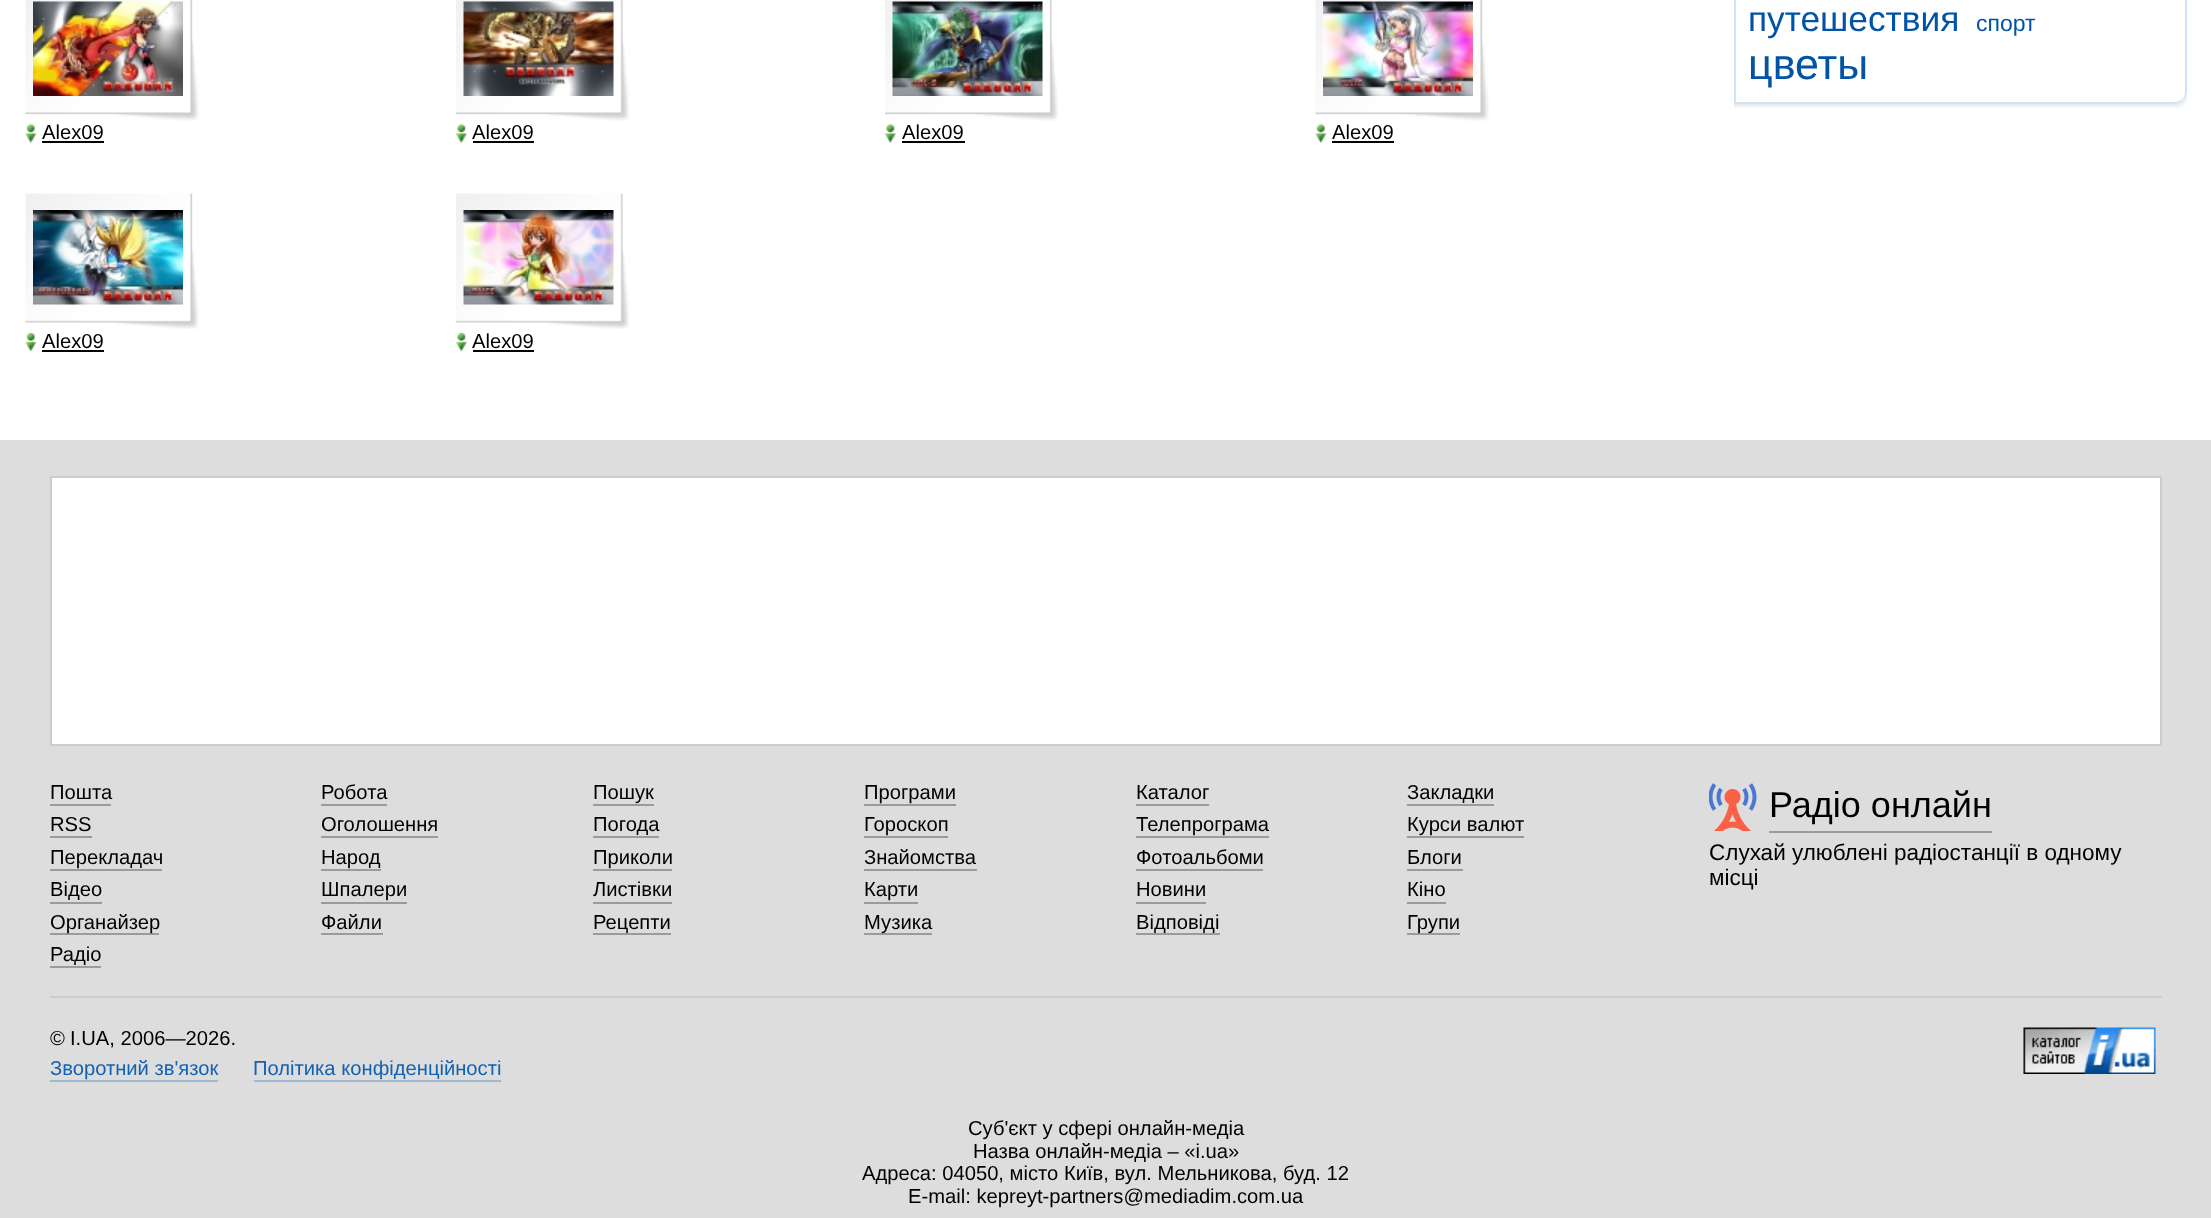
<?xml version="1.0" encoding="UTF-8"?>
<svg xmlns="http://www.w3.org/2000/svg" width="2211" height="1218">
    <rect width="100%" height="100%" fill="#FFFFFF"/>
    <image x="1734" y="104" width="441" height="4" href="img_01.png"/>
    <rect x="1735" y="-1" width="451" height="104" fill="none" stroke="#CEE3F7" stroke-width="2"/>
    <text x="1748" y="31" font-family="Liberation Sans" font-size="35.25" fill="#0053A5">путешествия</text>
    <text x="1976" y="31" font-family="Liberation Sans" font-size="23" fill="#0053A5">спорт</text>
    <text x="1748" y="79" font-family="Liberation Sans" font-size="43" fill="#0053A5">цветы</text>
    <image x="2175" y="92" width="12" height="17" href="img_02.png"/>
    <image x="25" y="0" width="174" height="121" href="img_03.png"/>
    <image x="33" y="1" width="150" height="95" href="img_04.png"/>
    <image x="25" y="124" width="12" height="19" href="img_05.png"/>
    <text x="42" y="139" font-family="Liberation Sans" font-size="20.2" fill="#000000">Alex09</text>
    <rect x="42" y="141" width="62" height="2" fill="#000000"/>
    <image x="456" y="0" width="173" height="121" href="img_06.png"/>
    <image x="463" y="1" width="151" height="95" href="img_07.png"/>
    <image x="456" y="124" width="11" height="19" href="img_08.png"/>
    <text x="472" y="139" font-family="Liberation Sans" font-size="20.2" fill="#000000">Alex09</text>
    <rect x="473" y="141" width="61" height="2" fill="#000000"/>
    <image x="885" y="0" width="173" height="121" href="img_06.png"/>
    <image x="892" y="1" width="151" height="95" href="img_09.png"/>
    <image x="885" y="124" width="11" height="19" href="img_10.png"/>
    <text x="902" y="139" font-family="Liberation Sans" font-size="20.2" fill="#000000">Alex09</text>
    <rect x="902" y="141" width="63" height="2" fill="#000000"/>
    <image x="1315" y="0" width="174" height="121" href="img_03.png"/>
    <image x="1323" y="1" width="150" height="95" href="img_11.png"/>
    <image x="1315" y="124" width="12" height="19" href="img_12.png"/>
    <text x="1332" y="139" font-family="Liberation Sans" font-size="20.2" fill="#000000">Alex09</text>
    <rect x="1332" y="141" width="62" height="2" fill="#000000"/>
    <image x="25" y="193" width="174" height="136" href="img_13.png"/>
    <image x="33" y="210" width="150" height="95" href="img_14.png"/>
    <image x="25" y="333" width="12" height="18" href="img_15.png"/>
    <text x="42" y="348" font-family="Liberation Sans" font-size="20.2" fill="#000000">Alex09</text>
    <rect x="42" y="350" width="62" height="2" fill="#000000"/>
    <image x="456" y="193" width="173" height="136" href="img_16.png"/>
    <image x="463" y="210" width="151" height="95" href="img_17.png"/>
    <image x="456" y="333" width="11" height="18" href="img_18.png"/>
    <text x="472" y="348" font-family="Liberation Sans" font-size="20.2" fill="#000000">Alex09</text>
    <rect x="473" y="350" width="61" height="2" fill="#000000"/>
    <rect x="0" y="440" width="2211" height="778" fill="#DDDDDD"/>
    <rect x="51" y="477" width="2110" height="268" fill="#FFFFFF" stroke="#CCCCCC" stroke-width="2"/>
    <text x="50" y="799" font-family="Liberation Sans" font-size="20.2" fill="#000000">Пошта</text>
    <rect x="50" y="804" width="61" height="2" fill="#9B9B9B"/>
    <text x="321" y="799" font-family="Liberation Sans" font-size="20.2" fill="#000000">Робота</text>
    <rect x="321" y="804" width="66" height="2" fill="#9B9B9B"/>
    <text x="593" y="799" font-family="Liberation Sans" font-size="20.2" fill="#000000">Пошук</text>
    <rect x="593" y="804" width="61" height="2" fill="#9B9B9B"/>
    <text x="864" y="799" font-family="Liberation Sans" font-size="20.2" fill="#000000">Програми</text>
    <rect x="864" y="804" width="92" height="2" fill="#9B9B9B"/>
    <text x="1136" y="799" font-family="Liberation Sans" font-size="20.2" fill="#000000">Каталог</text>
    <rect x="1136" y="804" width="73" height="2" fill="#9B9B9B"/>
    <text x="1407" y="799" font-family="Liberation Sans" font-size="20.2" fill="#000000">Закладки</text>
    <rect x="1407" y="804" width="87" height="2" fill="#9B9B9B"/>
    <text x="50" y="831" font-family="Liberation Sans" font-size="20.2" fill="#000000">RSS</text>
    <rect x="50" y="836" width="42" height="2" fill="#9B9B9B"/>
    <text x="321" y="831" font-family="Liberation Sans" font-size="20.2" fill="#000000">Оголошення</text>
    <rect x="321" y="836" width="117" height="2" fill="#9B9B9B"/>
    <text x="593" y="831" font-family="Liberation Sans" font-size="20.2" fill="#000000">Погода</text>
    <rect x="593" y="836" width="66" height="2" fill="#9B9B9B"/>
    <text x="864" y="831" font-family="Liberation Sans" font-size="20.2" fill="#000000">Гороскоп</text>
    <rect x="864" y="836" width="84" height="2" fill="#9B9B9B"/>
    <text x="1136" y="831" font-family="Liberation Sans" font-size="20.2" fill="#000000">Телепрограма</text>
    <rect x="1136" y="836" width="133" height="2" fill="#9B9B9B"/>
    <text x="1407" y="831" font-family="Liberation Sans" font-size="20.2" fill="#000000">Курси валют</text>
    <rect x="1407" y="836" width="117" height="2" fill="#9B9B9B"/>
    <text x="50" y="864" font-family="Liberation Sans" font-size="20.2" fill="#000000">Перекладач</text>
    <rect x="50" y="869" width="112" height="2" fill="#9B9B9B"/>
    <text x="321" y="864" font-family="Liberation Sans" font-size="20.2" fill="#000000">Народ</text>
    <rect x="321" y="869" width="60" height="2" fill="#9B9B9B"/>
    <text x="593" y="864" font-family="Liberation Sans" font-size="20.2" fill="#000000">Приколи</text>
    <rect x="593" y="869" width="79" height="2" fill="#9B9B9B"/>
    <text x="864" y="864" font-family="Liberation Sans" font-size="20.2" fill="#000000">Знайомства</text>
    <rect x="864" y="869" width="113" height="2" fill="#9B9B9B"/>
    <text x="1136" y="864" font-family="Liberation Sans" font-size="20.2" fill="#000000">Фотоальбоми</text>
    <rect x="1136" y="869" width="127" height="2" fill="#9B9B9B"/>
    <text x="1407" y="864" font-family="Liberation Sans" font-size="20.2" fill="#000000">Блоги</text>
    <rect x="1407" y="869" width="56" height="2" fill="#9B9B9B"/>
    <text x="50" y="896" font-family="Liberation Sans" font-size="20.2" fill="#000000">Відео</text>
    <rect x="50" y="902" width="52" height="2" fill="#9B9B9B"/>
    <text x="321" y="896" font-family="Liberation Sans" font-size="20.2" fill="#000000">Шпалери</text>
    <rect x="321" y="902" width="86" height="2" fill="#9B9B9B"/>
    <text x="593" y="896" font-family="Liberation Sans" font-size="20.2" fill="#000000">Листівки</text>
    <rect x="593" y="902" width="79" height="2" fill="#9B9B9B"/>
    <text x="864" y="896" font-family="Liberation Sans" font-size="20.2" fill="#000000">Карти</text>
    <rect x="864" y="902" width="54" height="2" fill="#9B9B9B"/>
    <text x="1136" y="896" font-family="Liberation Sans" font-size="20.2" fill="#000000">Новини</text>
    <rect x="1136" y="902" width="70" height="2" fill="#9B9B9B"/>
    <text x="1407" y="896" font-family="Liberation Sans" font-size="20.2" fill="#000000">Кіно</text>
    <rect x="1407" y="902" width="39" height="2" fill="#9B9B9B"/>
    <rect x="50" y="933" width="109" height="2" fill="#9B9B9B"/>
    <text x="50" y="929" font-family="Liberation Sans" font-size="20.2" fill="#000000">Органайзер</text>
    <text x="321" y="929" font-family="Liberation Sans" font-size="20.2" fill="#000000">Файли</text>
    <rect x="321" y="933" width="62" height="2" fill="#9B9B9B"/>
    <text x="593" y="929" font-family="Liberation Sans" font-size="20.2" fill="#000000">Рецепти</text>
    <rect x="593" y="933" width="78" height="2" fill="#9B9B9B"/>
    <rect x="864" y="933" width="68" height="2" fill="#9B9B9B"/>
    <text x="864" y="929" font-family="Liberation Sans" font-size="20.2" fill="#000000">Музика</text>
    <text x="1136" y="929" font-family="Liberation Sans" font-size="20.2" fill="#000000">Відповіді</text>
    <rect x="1136" y="933" width="84" height="2" fill="#9B9B9B"/>
    <rect x="1407" y="933" width="53" height="2" fill="#9B9B9B"/>
    <text x="1407" y="929" font-family="Liberation Sans" font-size="20.2" fill="#000000">Групи</text>
    <text x="50" y="961" font-family="Liberation Sans" font-size="20.2" fill="#000000">Радіо</text>
    <rect x="50" y="966" width="51" height="2" fill="#9B9B9B"/>
    <rect x="1769" y="831" width="223" height="2" fill="#9B9B9B"/>
    <image x="1709" y="783" width="48" height="48" href="img_19.png"/>
    <text x="1769" y="817" font-family="Liberation Sans" font-size="36" fill="#000000">Радіо онлайн</text>
    <text font-family="Liberation Sans" font-size="22.5" fill="#000000">
        <tspan x="1709" y="860">Слухай улюблені радіостанції в одному</tspan>
        <tspan x="1709" y="885">місці</tspan>
    </text>
    <rect x="50" y="996" width="2112" height="2" fill="#CCCCCC"/>
    <text x="50" y="1045" font-family="Liberation Sans" font-size="20.2" fill="#000000">©</text>
    <text x="70" y="1045" font-family="Liberation Sans" font-size="20.2" fill="#000000">I.UA, 2006—2026.</text>
    <rect x="2155" y="1050" width="1" height="2" fill="#A0B8D0"/>
    <image x="2023" y="1027" width="133" height="47" href="img_20.png"/>
    <text x="50" y="1075" font-family="Liberation Sans" font-size="20.2" fill="#1162B3">Зворотний зв'язок</text>
    <rect x="50" y="1080" width="168" height="2" fill="#A0B8D0"/>
    <text x="253" y="1075" font-family="Liberation Sans" font-size="20.2" fill="#1162B3">Політика конфіденційності</text>
    <rect x="254" y="1080" width="247" height="2" fill="#A0B8D0"/>
    <text x="968" y="1135" font-family="Liberation Sans" font-size="20.2" fill="#000000">Суб'єкт у сфері онлайн-медіа</text>
    <text x="973" y="1158" font-family="Liberation Sans" font-size="20.2" fill="#000000">Назва онлайн-медіа – «i.ua»</text>
    <text x="862" y="1180" font-family="Liberation Sans" font-size="20.2" fill="#000000">Адреса: 04050, місто Київ, вул. Мельникова, буд. 12</text>
    <text x="908" y="1203" font-family="Liberation Sans" font-size="20.2" fill="#000000">E-mail: kepreyt-partners@mediadim.com.ua</text>
</svg>
